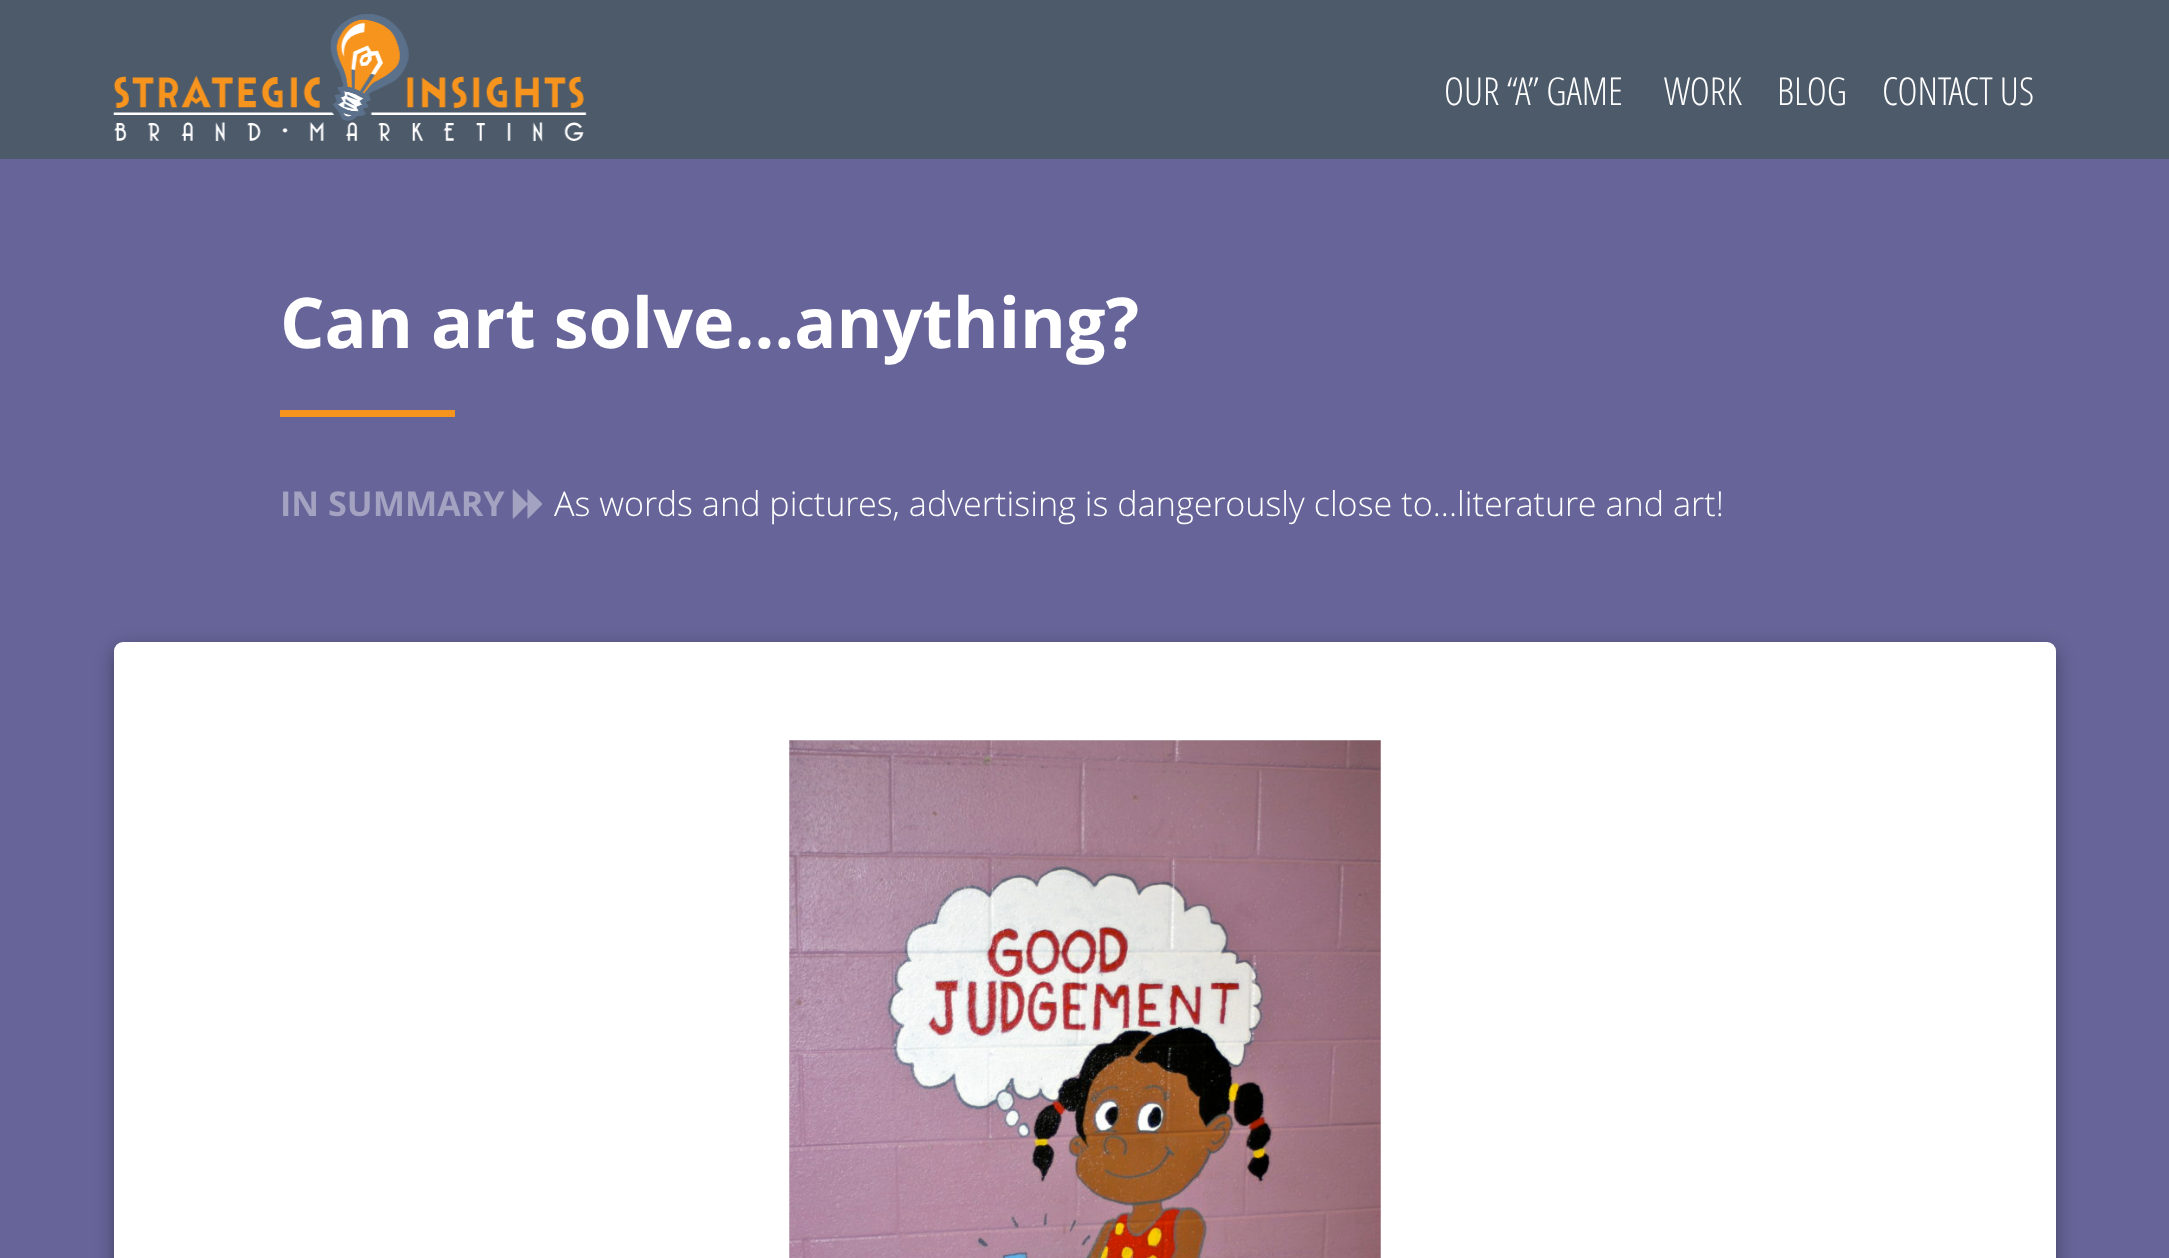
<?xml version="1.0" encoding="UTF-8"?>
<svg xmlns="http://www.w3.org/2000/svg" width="2169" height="1258">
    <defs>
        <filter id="blur1" x="-50%" y="-200%" width="200%" height="500%"><feGaussianBlur stdDeviation="9"/></filter>
    </defs>
    <rect width="100%" height="100%" fill="#666498"/>
    <rect x="0" y="0" width="2169" height="159" fill="#4D5A6A"/>
    <image x="113" y="14" width="474" height="128" href="img_01.png"/>
    <text x="1444" y="105" font-family="Open Sans Condensed" font-size="38.5" font-weight="300" fill="#FFFFFF">OUR “A” GAME</text>
    <text x="1664" y="105" font-family="Open Sans Condensed" font-size="38.5" font-weight="300" fill="#FFFFFF">WORK</text>
    <text x="1777" y="105" font-family="Open Sans Condensed" font-size="38.5" font-weight="300" fill="#FFFFFF">BLOG</text>
    <text x="1882" y="105" font-family="Open Sans Condensed" font-size="38.5" font-weight="300" fill="#FFFFFF">CONTACT US</text>
    <text x="280" y="348" font-family="Open Sans" font-size="70" font-weight="700" fill="#FFFFFF">Can art solve…anything?</text>
    <rect x="280" y="410" width="175" height="7" fill="#F7941D"/>
    <text x="280" y="516" font-family="Open Sans" font-size="34.2" font-weight="700" fill="#A3A2C1">IN SUMMARY</text>
    <image x="512" y="489" width="31" height="30" href="img_02.png"/>
    <text x="554" y="516" font-family="Open Sans" font-size="34.2" font-weight="300" fill="#FFFFFF">As words and pictures, advertising is dangerously close to...literature and art!</text>
    <rect x="114" y="648" width="1942" height="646" rx="9" fill="#000000" fill-opacity="0.35" filter="url(#blur1)"/>
    <rect x="114" y="642" width="1942" height="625" rx="9" fill="#FFFFFF"/>
    <image x="789" y="740" width="592" height="518" href="img_03.png"/>
</svg>
